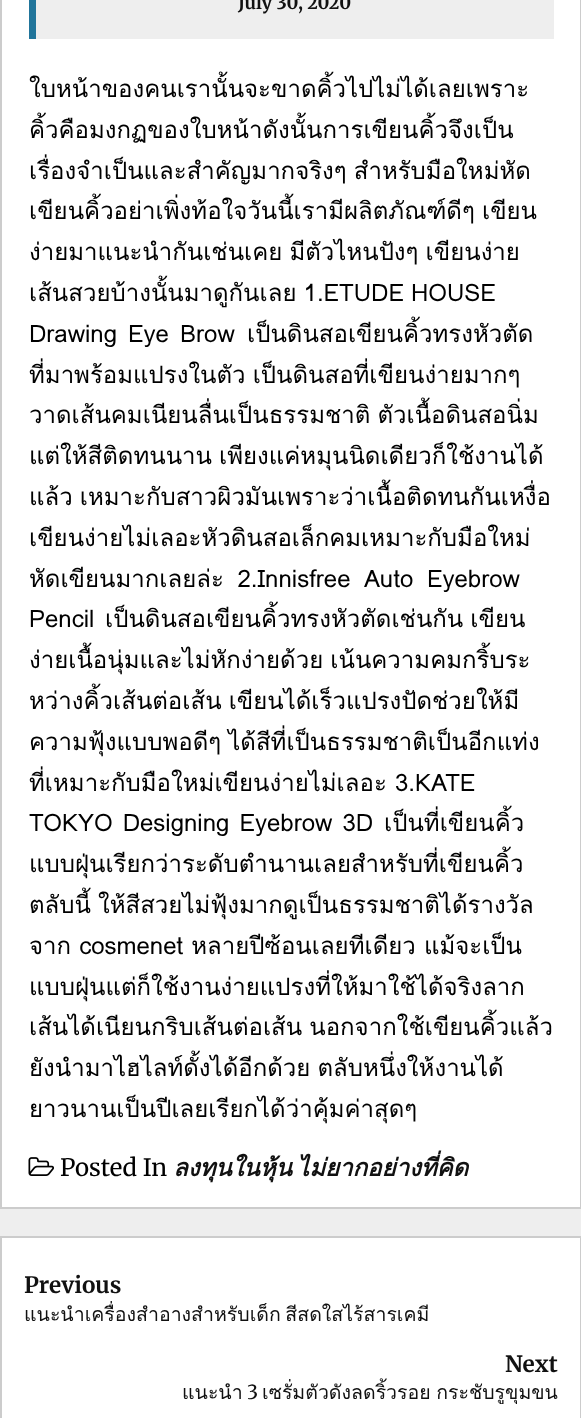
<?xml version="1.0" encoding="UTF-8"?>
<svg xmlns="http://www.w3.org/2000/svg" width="581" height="1418">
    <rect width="100%" height="100%" fill="#EEEEEE"/>
    <rect x="1" y="-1" width="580" height="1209" fill="#FFFFFF" stroke="#CCCCCC" stroke-width="2"/>
    <rect x="36" y="0" width="518" height="39" fill="#EEEEEE"/>
    <rect x="29" y="0" width="7" height="39" fill="#21759B"/>
    <text x="238" y="9" font-family="Merriweather" font-size="18" font-weight="700" fill="#111111">July 30, 2020</text>
    <text font-family="Loma" font-size="24" fill="#000000">
        <tspan x="29" y="97">ใบหน้าของคนเรานั้นจะขาดคิ้วไปไม่ได้เลยเพราะ</tspan>
        <tspan x="29" y="138">คิ้วคือมงกฏของใบหน้าดังนั้นการเขียนคิ้วจึงเป็น</tspan>
        <tspan x="29" y="179" word-spacing="-1">เรื่องจำเป็นและสำคัญมากจริงๆ สำหรับมือใหม่หัด</tspan>
        <tspan x="29" y="219" word-spacing="-1">เขียนคิ้วอย่าเพิ่งท้อใจวันนี้เรามีผลิตภัณฑ์ดีๆ เขียน</tspan>
        <tspan x="29" y="260" word-spacing="-1">ง่ายมาแนะนำกันเช่นเคย มีตัวไหนปังๆ เขียนง่าย</tspan>
        <tspan x="29" y="301" word-spacing="-1">เส้นสวยบ้างนั้นมาดูกันเลย 1.ETUDE HOUSE</tspan>
        <tspan x="29" y="342" word-spacing="3">Drawing Eye Brow</tspan>
    </text>
    <text x="247" y="342" font-family="Loma" font-size="24" fill="#000000">เป็นดินสอเขียนคิ้วทรงหัวตัด</text>
    <text font-family="Loma" font-size="24" fill="#000000">
        <tspan x="29" y="383" word-spacing="-1">ที่มาพร้อมแปรงในตัว เป็นดินสอที่เขียนง่ายมากๆ</tspan>
        <tspan x="29" y="423" word-spacing="-1">วาดเส้นคมเนียนลื่นเป็นธรรมชาติ ตัวเนื้อดินสอนิ่ม</tspan>
        <tspan x="29" y="464" word-spacing="-1">แต่ให้สีติดทนนาน เพียงแค่หมุนนิดเดียวก็ใช้งานได้</tspan>
        <tspan x="29" y="505" word-spacing="-1">แล้ว เหมาะกับสาวผิวมันเพราะว่าเนื้อติดทนกันเหงื่อ</tspan>
        <tspan x="29" y="546">เขียนง่ายไม่เลอะหัวดินสอเล็กคมเหมาะกับมือใหม่</tspan>
        <tspan x="29" y="587" word-spacing="5.5">หัดเขียนมากเลยล่ะ 2.Innisfree Auto Eyebrow</tspan>
        <tspan x="29" y="627">Pencil</tspan>
    </text>
    <text x="105" y="627" word-spacing="-1" font-family="Loma" font-size="24" fill="#000000">เป็นดินสอเขียนคิ้วทรงหัวตัดเช่นกัน เขียน</text>
    <text font-family="Loma" font-size="24" fill="#000000">
        <tspan x="29" y="668" word-spacing="-1">ง่ายเนื้อนุ่มและไม่หักง่ายด้วย เน้นความคมกริ้บระ</tspan>
        <tspan x="29" y="709" word-spacing="-1">หว่างคิ้วเส้นต่อเส้น เขียนได้เร็วแปรงปัดช่วยให้มี</tspan>
        <tspan x="29" y="750" word-spacing="-1">ความฟุ้งแบบพอดีๆ ได้สีที่เป็นธรรมชาติเป็นอีกแท่ง</tspan>
        <tspan x="29" y="791">ที่เหมาะกับมือใหม่เขียนง่ายไม่เลอะ 3.KATE</tspan>
        <tspan x="29" y="831" word-spacing="2">TOKYO Designing Eyebrow 3D</tspan>
    </text>
    <text x="384" y="831" font-family="Loma" font-size="24" fill="#000000">เป็นที่เขียนคิ้ว</text>
    <text font-family="Loma" font-size="24" fill="#000000">
        <tspan x="29" y="872">แบบฝุ่นเรียกว่าระดับตำนานเลยสำหรับที่เขียนคิ้ว</tspan>
        <tspan x="29" y="913" word-spacing="-1">ตลับนี้ ให้สีสวยไม่ฟุ้งมากดูเป็นธรรมชาติได้รางวัล</tspan>
        <tspan x="29" y="954">จาก cosmenet หลายปีซ้อนเลยทีเดียว แม้จะเป็น</tspan>
        <tspan x="29" y="995">แบบฝุ่นแต่ก็ใช้งานง่ายแปรงที่ให้มาใช้ได้จริงลาก</tspan>
        <tspan x="29" y="1035" word-spacing="-1">เส้นได้เนียนกริบเส้นต่อเส้น นอกจากใช้เขียนคิ้วแล้ว</tspan>
        <tspan x="29" y="1076" word-spacing="-1">ยังนำมาไฮไลท์ดั้งได้อีกด้วย ตลับหนึ่งให้งานได้</tspan>
        <tspan x="29" y="1117">ยาวนานเป็นปีเลยเรียกได้ว่าคุ้มค่าสุดๆ</tspan>
    </text>
    <image x="28" y="1157" width="26" height="19" href="img_01.png"/>
    <text x="60" y="1176" font-family="Merriweather" font-size="24" fill="#000000">Posted In</text>
    <text x="173" y="1176" word-spacing="-3" font-family="Loma" font-size="24" font-weight="700" font-style="italic" fill="#111111">ลงทุนในหุ้น ไม่ยากอย่างที่คิด</text>
    <rect x="1" y="1237" width="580" height="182" fill="#FFFFFF" stroke="#CCCCCC" stroke-width="2"/>
    <text x="24" y="1293" font-family="Merriweather" font-size="22.5" font-weight="700" fill="#111111">Previous</text>
    <text x="24" y="1321" word-spacing="-2" font-family="Loma" font-size="19.5" fill="#111111">แนะนำเครื่องสำอางสำหรับเด็ก สีสดใสไร้สารเคมี</text>
    <text x="505" y="1372" font-family="Merriweather" font-size="22.5" font-weight="700" fill="#111111">Next</text>
    <text x="182" y="1399" font-family="Loma" font-size="19.5" fill="#111111">แนะนำ</text>
    <text x="247" y="1399" font-family="Merriweather" font-size="19.5" fill="#111111">3</text>
    <text x="262" y="1399" word-spacing="-1" font-family="Loma" font-size="19.5" fill="#111111">เซรั่มตัวดังลดริ้วรอย กระชับรูขุมขน</text>
</svg>
